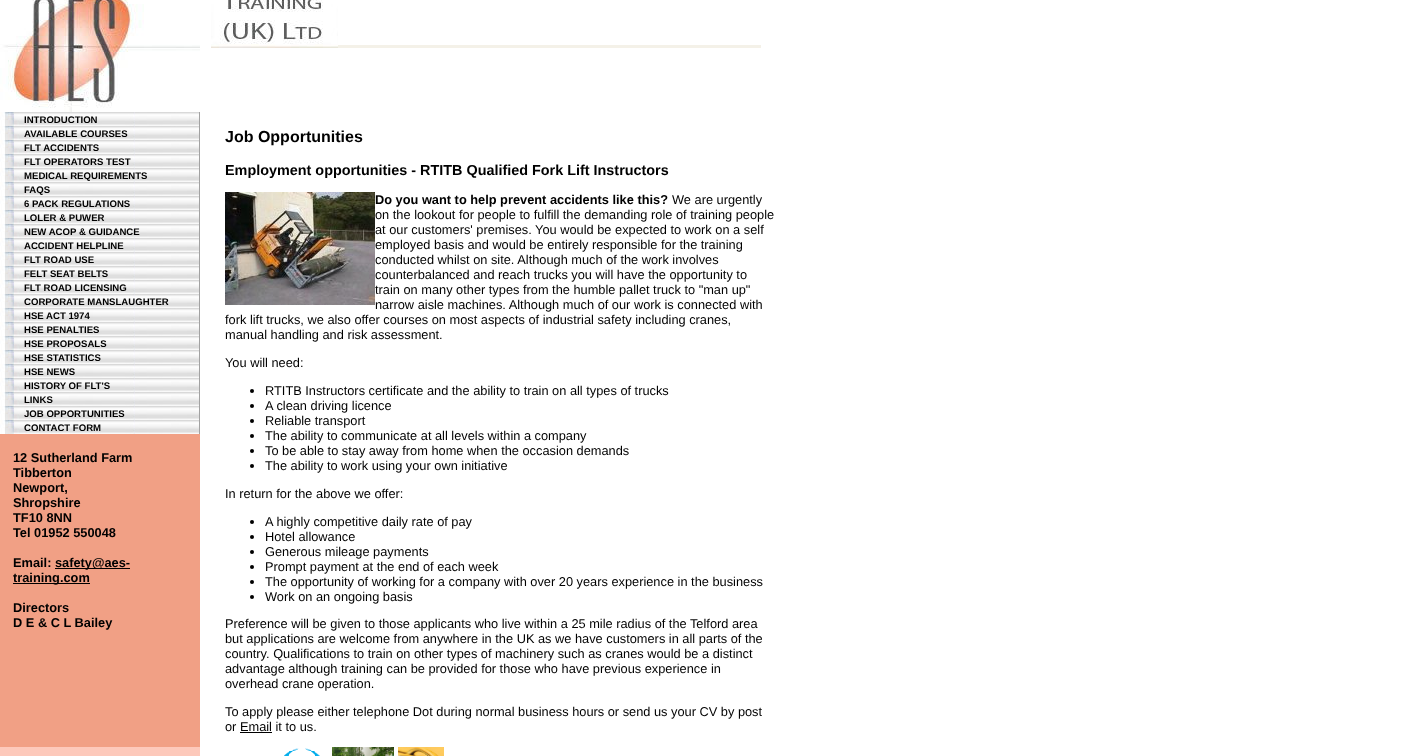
<?xml version="1.0" encoding="UTF-8"?>
<svg xmlns="http://www.w3.org/2000/svg" width="1416" height="756">
    <rect width="100%" height="100%" fill="#FFFFFF"/>
    <image x="0" y="0" width="200" height="112" href="img_01.png"/>
    <image x="211" y="0" width="127" height="48" href="img_02.png"/>
    <rect x="338" y="45" width="423" height="3" fill="#F4F1E8"/>
    <rect x="0" y="434" width="200" height="313" fill="#F1A085"/>
    <image x="0" y="112" width="14" height="14" href="img_03.png"/>
    <image x="14" y="112" width="10" height="14" href="img_04.png"/>
    <image x="24" y="112" width="175" height="14" href="img_05.png"/>
    <text x="24" y="123" font-family="Liberation Sans" font-size="9.6" font-weight="700" fill="#000000">INTRODUCTION</text>
    <rect x="199" y="112" width="1" height="322" fill="#A2A2A2"/>
    <image x="0" y="126" width="14" height="14" href="img_03.png"/>
    <image x="14" y="126" width="10" height="14" href="img_04.png"/>
    <image x="24" y="126" width="175" height="14" href="img_05.png"/>
    <text x="24" y="137" font-family="Liberation Sans" font-size="9.6" font-weight="700" fill="#000000">AVAILABLE COURSES</text>
    <image x="0" y="140" width="14" height="14" href="img_03.png"/>
    <image x="14" y="140" width="10" height="14" href="img_04.png"/>
    <image x="24" y="140" width="175" height="14" href="img_05.png"/>
    <text x="24" y="151" font-family="Liberation Sans" font-size="9.6" font-weight="700" fill="#000000">FLT ACCIDENTS</text>
    <image x="0" y="154" width="14" height="14" href="img_03.png"/>
    <image x="14" y="154" width="10" height="14" href="img_04.png"/>
    <image x="24" y="154" width="175" height="14" href="img_05.png"/>
    <text x="24" y="165" font-family="Liberation Sans" font-size="9.6" font-weight="700" fill="#000000">FLT OPERATORS TEST</text>
    <image x="0" y="168" width="14" height="14" href="img_03.png"/>
    <image x="14" y="168" width="10" height="14" href="img_04.png"/>
    <image x="24" y="168" width="175" height="14" href="img_05.png"/>
    <text x="24" y="179" font-family="Liberation Sans" font-size="9.6" font-weight="700" fill="#000000">MEDICAL REQUIREMENTS</text>
    <image x="0" y="182" width="14" height="14" href="img_03.png"/>
    <image x="14" y="182" width="10" height="14" href="img_04.png"/>
    <image x="24" y="182" width="175" height="14" href="img_05.png"/>
    <text x="24" y="193" font-family="Liberation Sans" font-size="9.6" font-weight="700" fill="#000000">FAQS</text>
    <image x="0" y="196" width="14" height="14" href="img_03.png"/>
    <image x="14" y="196" width="10" height="14" href="img_04.png"/>
    <image x="24" y="196" width="175" height="14" href="img_05.png"/>
    <text x="24" y="207" font-family="Liberation Sans" font-size="9.6" font-weight="700" fill="#000000">6 PACK REGULATIONS</text>
    <image x="0" y="210" width="14" height="14" href="img_03.png"/>
    <image x="14" y="210" width="10" height="14" href="img_04.png"/>
    <image x="24" y="210" width="175" height="14" href="img_05.png"/>
    <text x="24" y="221" font-family="Liberation Sans" font-size="9.6" font-weight="700" fill="#000000">LOLER &amp; PUWER</text>
    <image x="0" y="224" width="14" height="14" href="img_03.png"/>
    <image x="14" y="224" width="10" height="14" href="img_04.png"/>
    <image x="24" y="224" width="175" height="14" href="img_05.png"/>
    <text x="24" y="235" font-family="Liberation Sans" font-size="9.6" font-weight="700" fill="#000000">NEW ACOP &amp; GUIDANCE</text>
    <image x="0" y="238" width="14" height="14" href="img_03.png"/>
    <image x="14" y="238" width="10" height="14" href="img_04.png"/>
    <image x="24" y="238" width="175" height="14" href="img_05.png"/>
    <text x="24" y="249" font-family="Liberation Sans" font-size="9.6" font-weight="700" fill="#000000">ACCIDENT HELPLINE</text>
    <image x="0" y="252" width="14" height="14" href="img_03.png"/>
    <image x="14" y="252" width="10" height="14" href="img_04.png"/>
    <image x="24" y="252" width="175" height="14" href="img_05.png"/>
    <text x="24" y="263" font-family="Liberation Sans" font-size="9.6" font-weight="700" fill="#000000">FLT ROAD USE</text>
    <image x="0" y="266" width="14" height="14" href="img_03.png"/>
    <image x="14" y="266" width="10" height="14" href="img_04.png"/>
    <image x="24" y="266" width="175" height="14" href="img_05.png"/>
    <text x="24" y="277" font-family="Liberation Sans" font-size="9.6" font-weight="700" fill="#000000">FELT SEAT BELTS</text>
    <image x="0" y="280" width="14" height="14" href="img_03.png"/>
    <image x="14" y="280" width="10" height="14" href="img_04.png"/>
    <image x="24" y="280" width="175" height="14" href="img_05.png"/>
    <text x="24" y="291" font-family="Liberation Sans" font-size="9.6" font-weight="700" fill="#000000">FLT ROAD LICENSING</text>
    <image x="0" y="294" width="14" height="14" href="img_03.png"/>
    <image x="14" y="294" width="10" height="14" href="img_04.png"/>
    <image x="24" y="294" width="175" height="14" href="img_05.png"/>
    <text x="24" y="305" font-family="Liberation Sans" font-size="9.6" font-weight="700" fill="#000000">CORPORATE MANSLAUGHTER</text>
    <image x="0" y="308" width="14" height="14" href="img_03.png"/>
    <image x="14" y="308" width="10" height="14" href="img_04.png"/>
    <image x="24" y="308" width="175" height="14" href="img_05.png"/>
    <text x="24" y="319" font-family="Liberation Sans" font-size="9.6" font-weight="700" fill="#000000">HSE ACT 1974</text>
    <image x="0" y="322" width="14" height="14" href="img_03.png"/>
    <image x="14" y="322" width="10" height="14" href="img_04.png"/>
    <image x="24" y="322" width="175" height="14" href="img_05.png"/>
    <text x="24" y="333" font-family="Liberation Sans" font-size="9.6" font-weight="700" fill="#000000">HSE PENALTIES</text>
    <image x="0" y="336" width="14" height="14" href="img_03.png"/>
    <image x="14" y="336" width="10" height="14" href="img_04.png"/>
    <image x="24" y="336" width="175" height="14" href="img_05.png"/>
    <text x="24" y="347" font-family="Liberation Sans" font-size="9.6" font-weight="700" fill="#000000">HSE PROPOSALS</text>
    <image x="0" y="350" width="14" height="14" href="img_03.png"/>
    <image x="14" y="350" width="10" height="14" href="img_04.png"/>
    <image x="24" y="350" width="175" height="14" href="img_05.png"/>
    <text x="24" y="361" font-family="Liberation Sans" font-size="9.6" font-weight="700" fill="#000000">HSE STATISTICS</text>
    <image x="0" y="364" width="14" height="14" href="img_03.png"/>
    <image x="14" y="364" width="10" height="14" href="img_04.png"/>
    <image x="24" y="364" width="175" height="14" href="img_05.png"/>
    <text x="24" y="375" font-family="Liberation Sans" font-size="9.6" font-weight="700" fill="#000000">HSE NEWS</text>
    <image x="0" y="378" width="14" height="14" href="img_03.png"/>
    <image x="14" y="378" width="10" height="14" href="img_04.png"/>
    <image x="24" y="378" width="175" height="14" href="img_05.png"/>
    <text x="24" y="389" font-family="Liberation Sans" font-size="9.6" font-weight="700" fill="#000000">HISTORY OF FLT'S</text>
    <image x="0" y="392" width="14" height="14" href="img_03.png"/>
    <image x="14" y="392" width="10" height="14" href="img_04.png"/>
    <image x="24" y="392" width="175" height="14" href="img_05.png"/>
    <text x="24" y="403" font-family="Liberation Sans" font-size="9.6" font-weight="700" fill="#000000">LINKS</text>
    <image x="0" y="406" width="14" height="14" href="img_03.png"/>
    <image x="14" y="406" width="10" height="14" href="img_04.png"/>
    <image x="24" y="406" width="175" height="14" href="img_05.png"/>
    <text x="24" y="417" font-family="Liberation Sans" font-size="9.6" font-weight="700" fill="#000000">JOB OPPORTUNITIES</text>
    <image x="0" y="420" width="14" height="14" href="img_03.png"/>
    <image x="14" y="420" width="10" height="14" href="img_04.png"/>
    <image x="24" y="420" width="175" height="14" href="img_05.png"/>
    <text x="24" y="431" font-family="Liberation Sans" font-size="9.6" font-weight="700" fill="#000000">CONTACT FORM</text>
    <text font-family="Liberation Sans" font-size="12.8" font-weight="700" fill="#000000">
        <tspan x="13" y="462">12 Sutherland Farm</tspan>
        <tspan x="13" y="477">Tibberton</tspan>
        <tspan x="13" y="492">Newport,</tspan>
        <tspan x="13" y="507">Shropshire</tspan>
        <tspan x="13" y="522">TF10 8NN</tspan>
        <tspan x="13" y="537">Tel 01952 550048</tspan>
    </text>
    <text x="13" y="567" font-family="Liberation Sans" font-size="12.8" font-weight="700" fill="#000000">Email:</text>
    <rect x="55" y="568" width="75" height="1" fill="#000000"/>
    <text x="55" y="567" font-family="Liberation Sans" font-size="12.8" font-weight="700" fill="#000000">safety@aes-</text>
    <rect x="13" y="583" width="77" height="1" fill="#000000"/>
    <text x="13" y="582" font-family="Liberation Sans" font-size="12.8" font-weight="700" fill="#000000">training.com</text>
    <text font-family="Liberation Sans" font-size="12.8" font-weight="700" fill="#000000">
        <tspan x="13" y="612">Directors</tspan>
        <tspan x="13" y="627">D E &amp; C L Bailey</tspan>
    </text>
    <text x="225" y="142" font-family="Liberation Sans" font-size="16" font-weight="700" fill="#000000">Job Opportunities</text>
    <text x="225" y="175" font-family="Liberation Sans" font-size="14.4" font-weight="700" fill="#000000">Employment opportunities - RTITB Qualified Fork Lift Instructors</text>
    <image x="225" y="192" width="150" height="113" href="img_06.png"/>
    <text x="375" y="204" font-family="Liberation Sans" font-size="12.8" font-weight="700" fill="#000000">Do you want to help prevent accidents like this?</text>
    <text x="672" y="204" font-family="Liberation Sans" font-size="12.8" fill="#000000">We are urgently</text>
    <text font-family="Liberation Sans" font-size="12.8" fill="#000000">
        <tspan x="375" y="219">on the lookout for people to fulfill the demanding role of training people</tspan>
        <tspan x="375" y="234">at our customers' premises. You would be expected to work on a self</tspan>
        <tspan x="375" y="249">employed basis and would be entirely responsible for the training</tspan>
        <tspan x="375" y="264">conducted whilst on site. Although much of the work involves</tspan>
        <tspan x="375" y="279">counterbalanced and reach trucks you will have the opportunity to</tspan>
        <tspan x="375" y="294">train on many other types from the humble pallet truck to "man up"</tspan>
        <tspan x="375" y="309">narrow aisle machines. Although much of our work is connected with</tspan>
    </text>
    <text font-family="Liberation Sans" font-size="12.8" fill="#000000">
        <tspan x="225" y="324">fork lift trucks, we also offer courses on most aspects of industrial safety including cranes,</tspan>
        <tspan x="225" y="339">manual handling and risk assessment.</tspan>
    </text>
    <text x="225" y="367" font-family="Liberation Sans" font-size="12.8" fill="#000000">You will need:</text>
    <circle cx="252" cy="391" r="2" fill="#000000"/>
    <text x="265" y="395" font-family="Liberation Sans" font-size="12.8" fill="#000000">RTITB Instructors certificate and the ability to train on all types of trucks</text>
    <circle cx="252" cy="406" r="2" fill="#000000"/>
    <text x="265" y="410" font-family="Liberation Sans" font-size="12.8" fill="#000000">A clean driving licence</text>
    <circle cx="252" cy="421" r="2" fill="#000000"/>
    <text x="265" y="425" font-family="Liberation Sans" font-size="12.8" fill="#000000">Reliable transport</text>
    <circle cx="252" cy="436" r="2" fill="#000000"/>
    <text x="265" y="440" font-family="Liberation Sans" font-size="12.8" fill="#000000">The ability to communicate at all levels within a company</text>
    <circle cx="252" cy="451" r="2" fill="#000000"/>
    <text x="265" y="455" font-family="Liberation Sans" font-size="12.8" fill="#000000">To be able to stay away from home when the occasion demands</text>
    <circle cx="252" cy="466" r="2" fill="#000000"/>
    <text x="265" y="470" font-family="Liberation Sans" font-size="12.8" fill="#000000">The ability to work using your own initiative</text>
    <text x="225" y="498" font-family="Liberation Sans" font-size="12.8" fill="#000000">In return for the above we offer:</text>
    <circle cx="252" cy="522" r="2" fill="#000000"/>
    <text x="265" y="526" font-family="Liberation Sans" font-size="12.8" fill="#000000">A highly competitive daily rate of pay</text>
    <circle cx="252" cy="537" r="2" fill="#000000"/>
    <text x="265" y="541" font-family="Liberation Sans" font-size="12.8" fill="#000000">Hotel allowance</text>
    <circle cx="252" cy="552" r="2" fill="#000000"/>
    <text x="265" y="556" font-family="Liberation Sans" font-size="12.8" fill="#000000">Generous mileage payments</text>
    <circle cx="252" cy="567" r="2" fill="#000000"/>
    <text x="265" y="571" font-family="Liberation Sans" font-size="12.8" fill="#000000">Prompt payment at the end of each week</text>
    <circle cx="252" cy="582" r="2" fill="#000000"/>
    <text x="265" y="586" font-family="Liberation Sans" font-size="12.8" fill="#000000">The opportunity of working for a company with over 20 years experience in the business</text>
    <circle cx="252" cy="597" r="2" fill="#000000"/>
    <text x="265" y="601" font-family="Liberation Sans" font-size="12.8" fill="#000000">Work on an ongoing basis</text>
    <text font-family="Liberation Sans" font-size="12.8" fill="#000000">
        <tspan x="225" y="628">Preference will be given to those applicants who live within a 25 mile radius of the Telford area</tspan>
        <tspan x="225" y="643">but applications are welcome from anywhere in the UK as we have customers in all parts of the</tspan>
        <tspan x="225" y="658">country. Qualifications to train on other types of machinery such as cranes would be a distinct</tspan>
        <tspan x="225" y="673">advantage although training can be provided for those who have previous experience in</tspan>
        <tspan x="225" y="688">overhead crane operation.</tspan>
    </text>
    <text font-family="Liberation Sans" font-size="12.8" fill="#000000">
        <tspan x="225" y="716">To apply please either telephone Dot during normal business hours or send us your CV by post</tspan>
        <tspan x="225" y="731">or Email it to us.</tspan>
    </text>
    <rect x="240" y="732" width="32" height="1" fill="#000000"/>
    <rect x="0" y="747" width="200" height="9" fill="#FDC9BB"/>
    <image x="284" y="748" width="36" height="8" href="img_07.png"/>
    <image x="332" y="747" width="62" height="9" href="img_08.png"/>
    <image x="398" y="747" width="46" height="9" href="img_09.png"/>
</svg>
